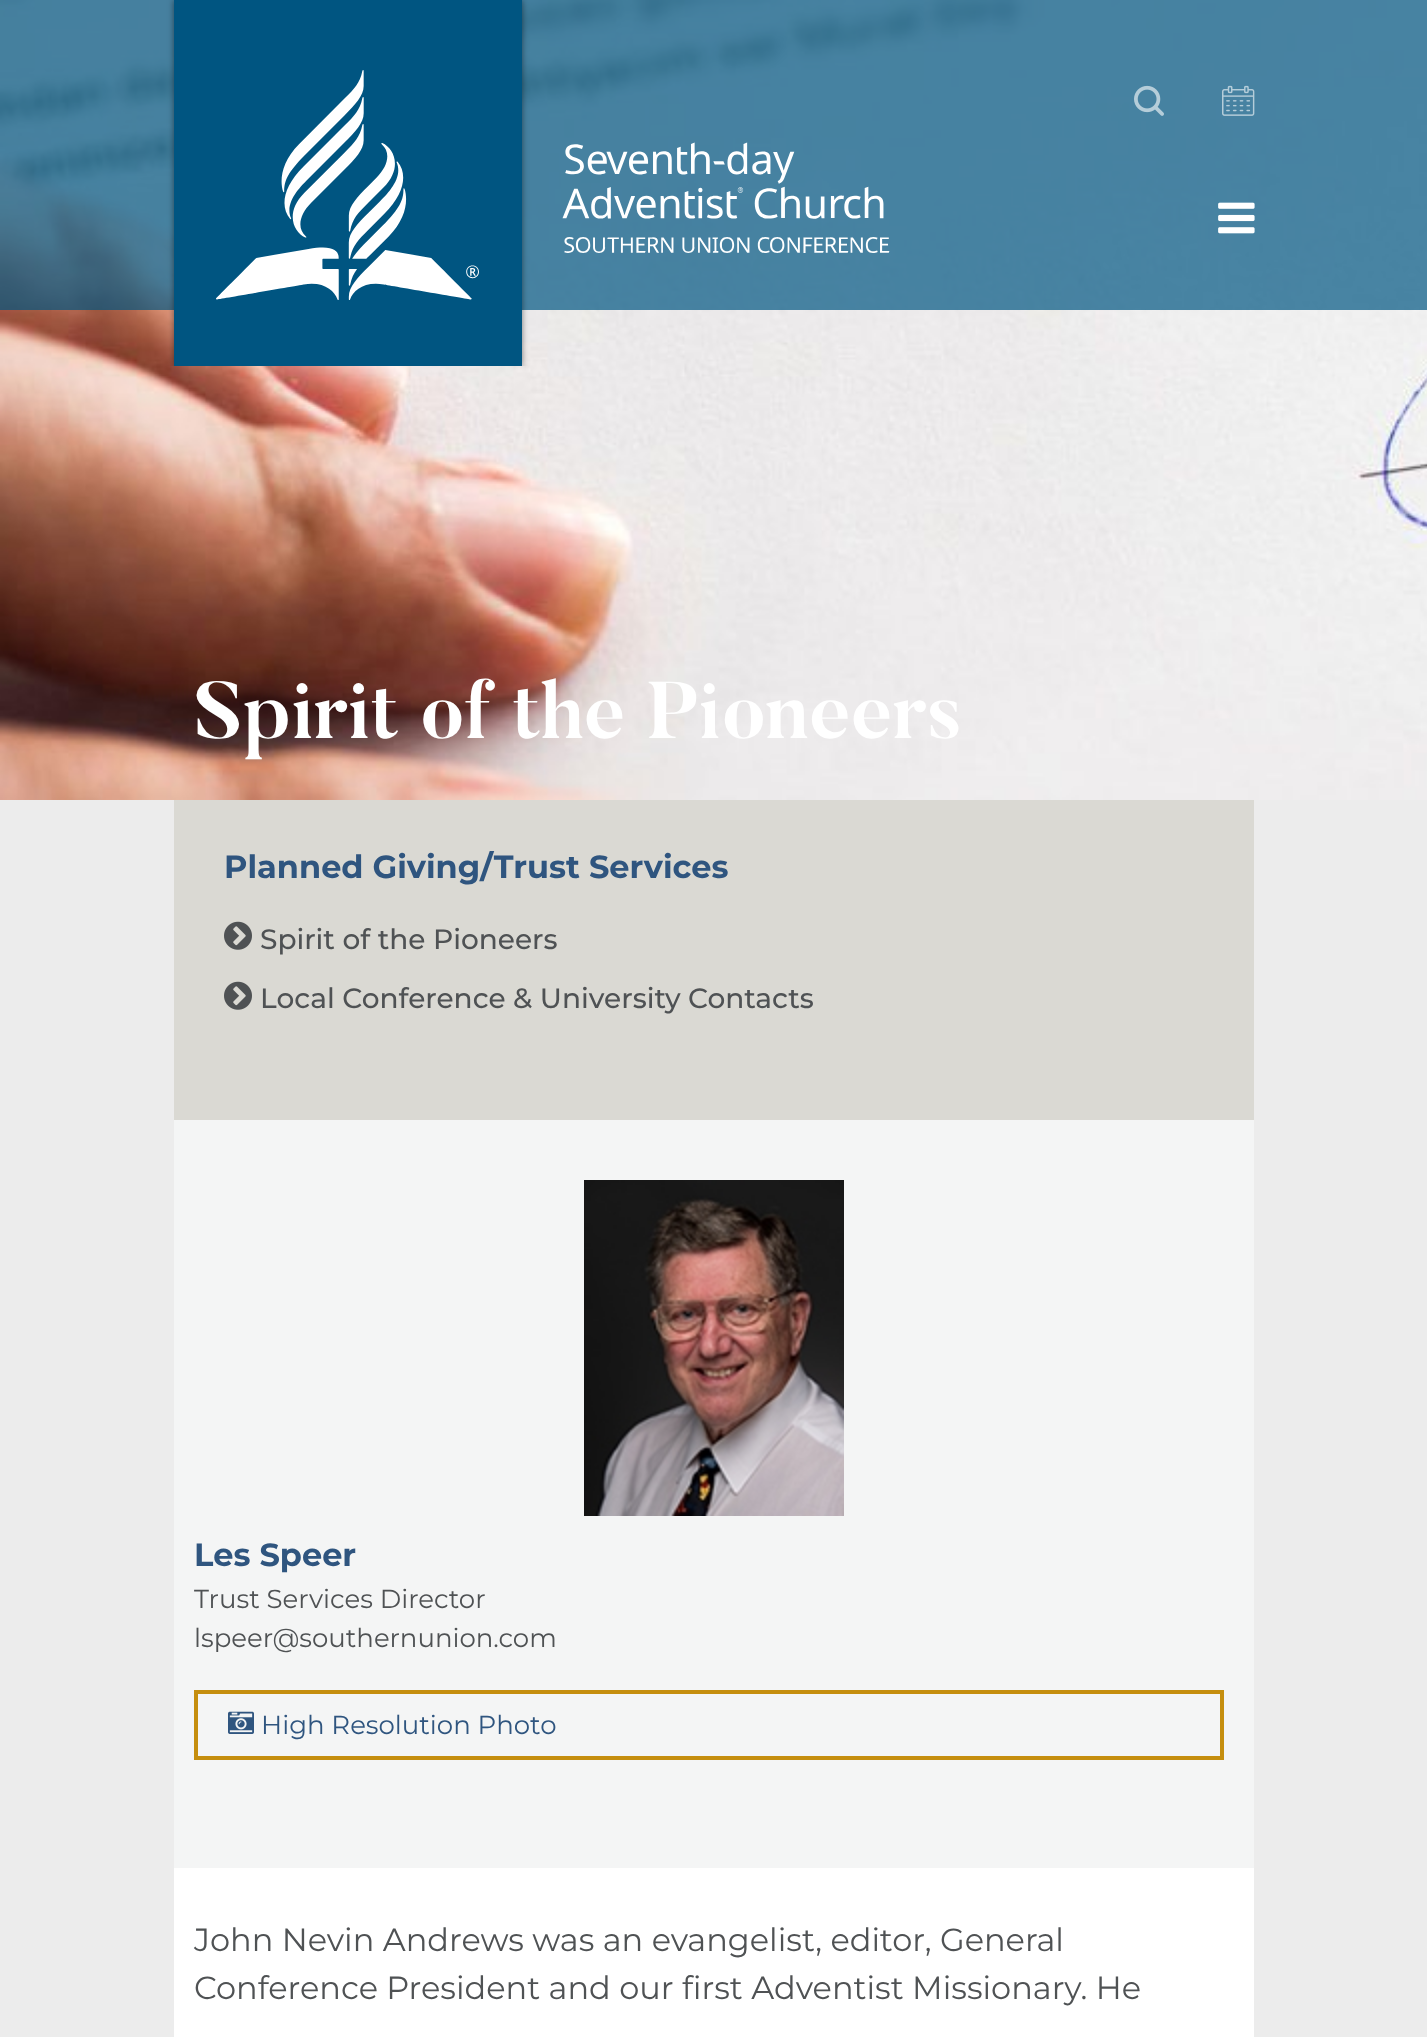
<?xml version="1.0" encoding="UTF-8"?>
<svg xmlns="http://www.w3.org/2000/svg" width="1427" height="2037">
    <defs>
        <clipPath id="clip1"><rect x="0" y="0" width="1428" height="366"/></clipPath>
        <filter id="blur1" x="-50%" y="-200%" width="200%" height="500%"><feGaussianBlur stdDeviation="3"/></filter>
    </defs>
    <rect width="100%" height="100%" fill="#FFFFFF"/>
    <image x="0" y="0" width="1427" height="800" href="img_06.png"/>
    <rect x="0" y="0" width="1427" height="310" fill="#005581" fill-opacity="0.7"/>
    <g clip-path="url(#clip1)">
        <rect x="174" y="0" width="348" height="366" fill="#000000" fill-opacity="0.5" filter="url(#blur1)"/>
    </g>
    <rect x="174" y="0" width="348" height="366" fill="#005581"/>
    <image x="216" y="70" width="263" height="230" href="img_01.png"/>
    <image x="562" y="142" width="328" height="111" href="img_02.png"/>
    <image x="1134" y="85" width="30" height="31" href="img_03.png"/>
    <image x="1222" y="85" width="33" height="31" href="img_04.png"/>
    <image x="1218" y="202" width="37" height="32" href="img_05.png"/>
    <text x="194" y="738" font-family="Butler" font-size="80" font-weight="700" fill="#FFFFFF">Spirit of the Pioneers</text>
    <rect x="0" y="800" width="1427" height="1237" fill="#ECECEC"/>
    <rect x="174" y="1868" width="1080" height="169" fill="#FFFFFF"/>
    <rect x="174" y="800" width="1080" height="320" fill="#DAD9D3"/>
    <text x="224" y="878" font-family="Montserrat" font-size="32" font-weight="700" fill="#2F557F">Planned Giving/Trust Services</text>
    <image x="224" y="921" width="28" height="29" href="img_07.png"/>
    <text x="260" y="949" font-family="Montserrat" font-size="28" font-weight="500" fill="#4F5254">Spirit of the Pioneers</text>
    <image x="224" y="981" width="28" height="29" href="img_07.png"/>
    <text x="260" y="1008" font-family="Montserrat" font-size="28" font-weight="500" fill="#4F5254">Local Conference &amp; University Contacts</text>
    <rect x="174" y="1120" width="1080" height="748" fill="#F4F5F5"/>
    <image x="584" y="1180" width="260" height="336" href="img_08.png"/>
    <text x="194" y="1566" font-family="Montserrat" font-size="32" font-weight="700" fill="#2F557F">Les Speer</text>
    <text font-family="Montserrat" font-size="26" fill="#4F5254">
        <tspan x="194" y="1608">Trust Services Director</tspan>
        <tspan x="194" y="1647">lspeer@southernunion.com</tspan>
    </text>
    <rect x="196" y="1692" width="1026" height="66" fill="none" stroke="#C58E0E" stroke-width="4"/>
    <image x="228" y="1711" width="26" height="23" href="img_09.png"/>
    <text x="261" y="1734" font-family="Montserrat" font-size="26" fill="#2F557F">High Resolution Photo</text>
    <text font-family="Montserrat" font-size="32" fill="#4F5254">
        <tspan x="194" y="1951">John Nevin Andrews was an evangelist, editor, General</tspan>
        <tspan x="194" y="1999">Conference President and our first Adventist Missionary. He</tspan>
    </text>
</svg>
